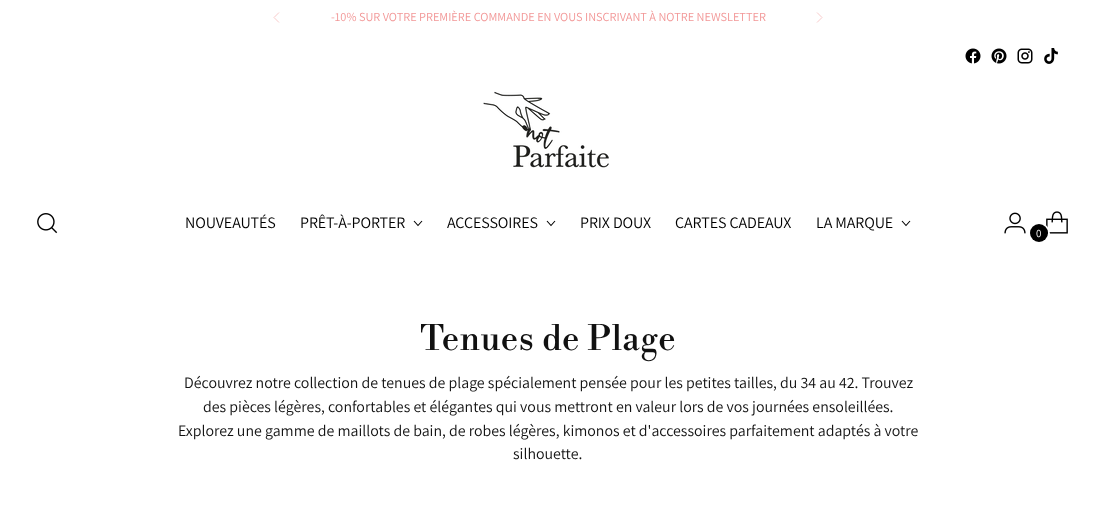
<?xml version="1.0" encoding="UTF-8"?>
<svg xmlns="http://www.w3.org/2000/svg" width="1096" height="505">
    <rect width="100%" height="100%" fill="#FFFFFF"/>
    <text x="331" y="21" font-family="Assistant" font-size="12.3" fill="#F29797">-10% SUR VOTRE PREMIÈRE COMMANDE EN VOUS INSCRIVANT À NOTRE NEWSLETTER</text>
    <path d="M 279 12.5 L 274 17.5 L 279 22.5" fill="none" stroke="#F9CBCB"/>
    <path d="M 817 22.5 L 822 17.5 L 817 12.5" fill="none" stroke="#F9CBCB"/>
    <image x="965" y="48" width="16" height="16" href="img_01.png"/>
    <image x="991" y="48" width="16" height="16" href="img_02.png"/>
    <image x="1017" y="48" width="16" height="16" href="img_03.png"/>
    <image x="1044" y="48" width="14" height="16" href="img_04.png"/>
    <image x="483" y="91" width="126" height="77" href="img_05.png"/>
    <image x="37" y="213" width="21" height="21" href="img_06.png"/>
    <text x="185" y="228" font-family="Assistant" font-size="16" letter-spacing="-0.1" fill="#000000">NOUVEAUTÉS</text>
    <text x="300" y="228" font-family="Assistant" font-size="16" letter-spacing="-0.1" fill="#000000">PRÊT-À-PORTER</text>
    <path d="M 414 221 L 418 225.5 L 422 221" fill="none" stroke="#000000" stroke-width="1.1"/>
    <text x="447" y="228" font-family="Assistant" font-size="16" letter-spacing="-0.1" fill="#000000">ACCESSOIRES</text>
    <path d="M 547 221 L 551 225.5 L 555 221" fill="none" stroke="#000000" stroke-width="1.1"/>
    <text x="580" y="228" font-family="Assistant" font-size="16" letter-spacing="-0.1" fill="#000000">PRIX DOUX</text>
    <text x="675" y="228" font-family="Assistant" font-size="16" letter-spacing="-0.1" fill="#000000">CARTES CADEAUX</text>
    <text x="816" y="228" font-family="Assistant" font-size="16" letter-spacing="-0.1" fill="#000000">LA MARQUE</text>
    <path d="M 902 221 L 906 225.5 L 910 221" fill="none" stroke="#000000" stroke-width="1.1"/>
    <image x="1004" y="212" width="22" height="22" href="img_07.png"/>
    <image x="1046" y="211" width="22" height="23" href="img_08.png"/>
    <circle cx="1039.5" cy="233.5" r="9.5" fill="none" stroke="#FFFFFF" stroke-width="2"/>
    <circle cx="1039" cy="233" r="9" fill="#000000"/>
    <text x="1036" y="237" font-family="Assistant" font-size="11" fill="#FFFFFF">0</text>
    <text x="420" y="350" font-family="Libre Bodoni" font-size="34.5" letter-spacing="0.5" fill="#111111">Tenues de Plage</text>
    <text x="184" y="388" font-family="Assistant" font-size="15.85" fill="#111111">Découvrez notre collection de tenues de plage spécialement pensée pour les petites tailles, du 34 au 42. Trouvez</text>
    <text x="203" y="412" font-family="Assistant" font-size="15.85" fill="#111111">des pièces légères, confortables et élégantes qui vous mettront en valeur lors de vos journées ensoleillées.</text>
    <text x="178" y="436" font-family="Assistant" font-size="15.85" fill="#111111">Explorez une gamme de maillots de bain, de robes légères, kimonos et d'accessoires parfaitement adaptés à votre</text>
    <text x="513" y="459" font-family="Assistant" font-size="15.85" fill="#111111">silhouette.</text>
</svg>
